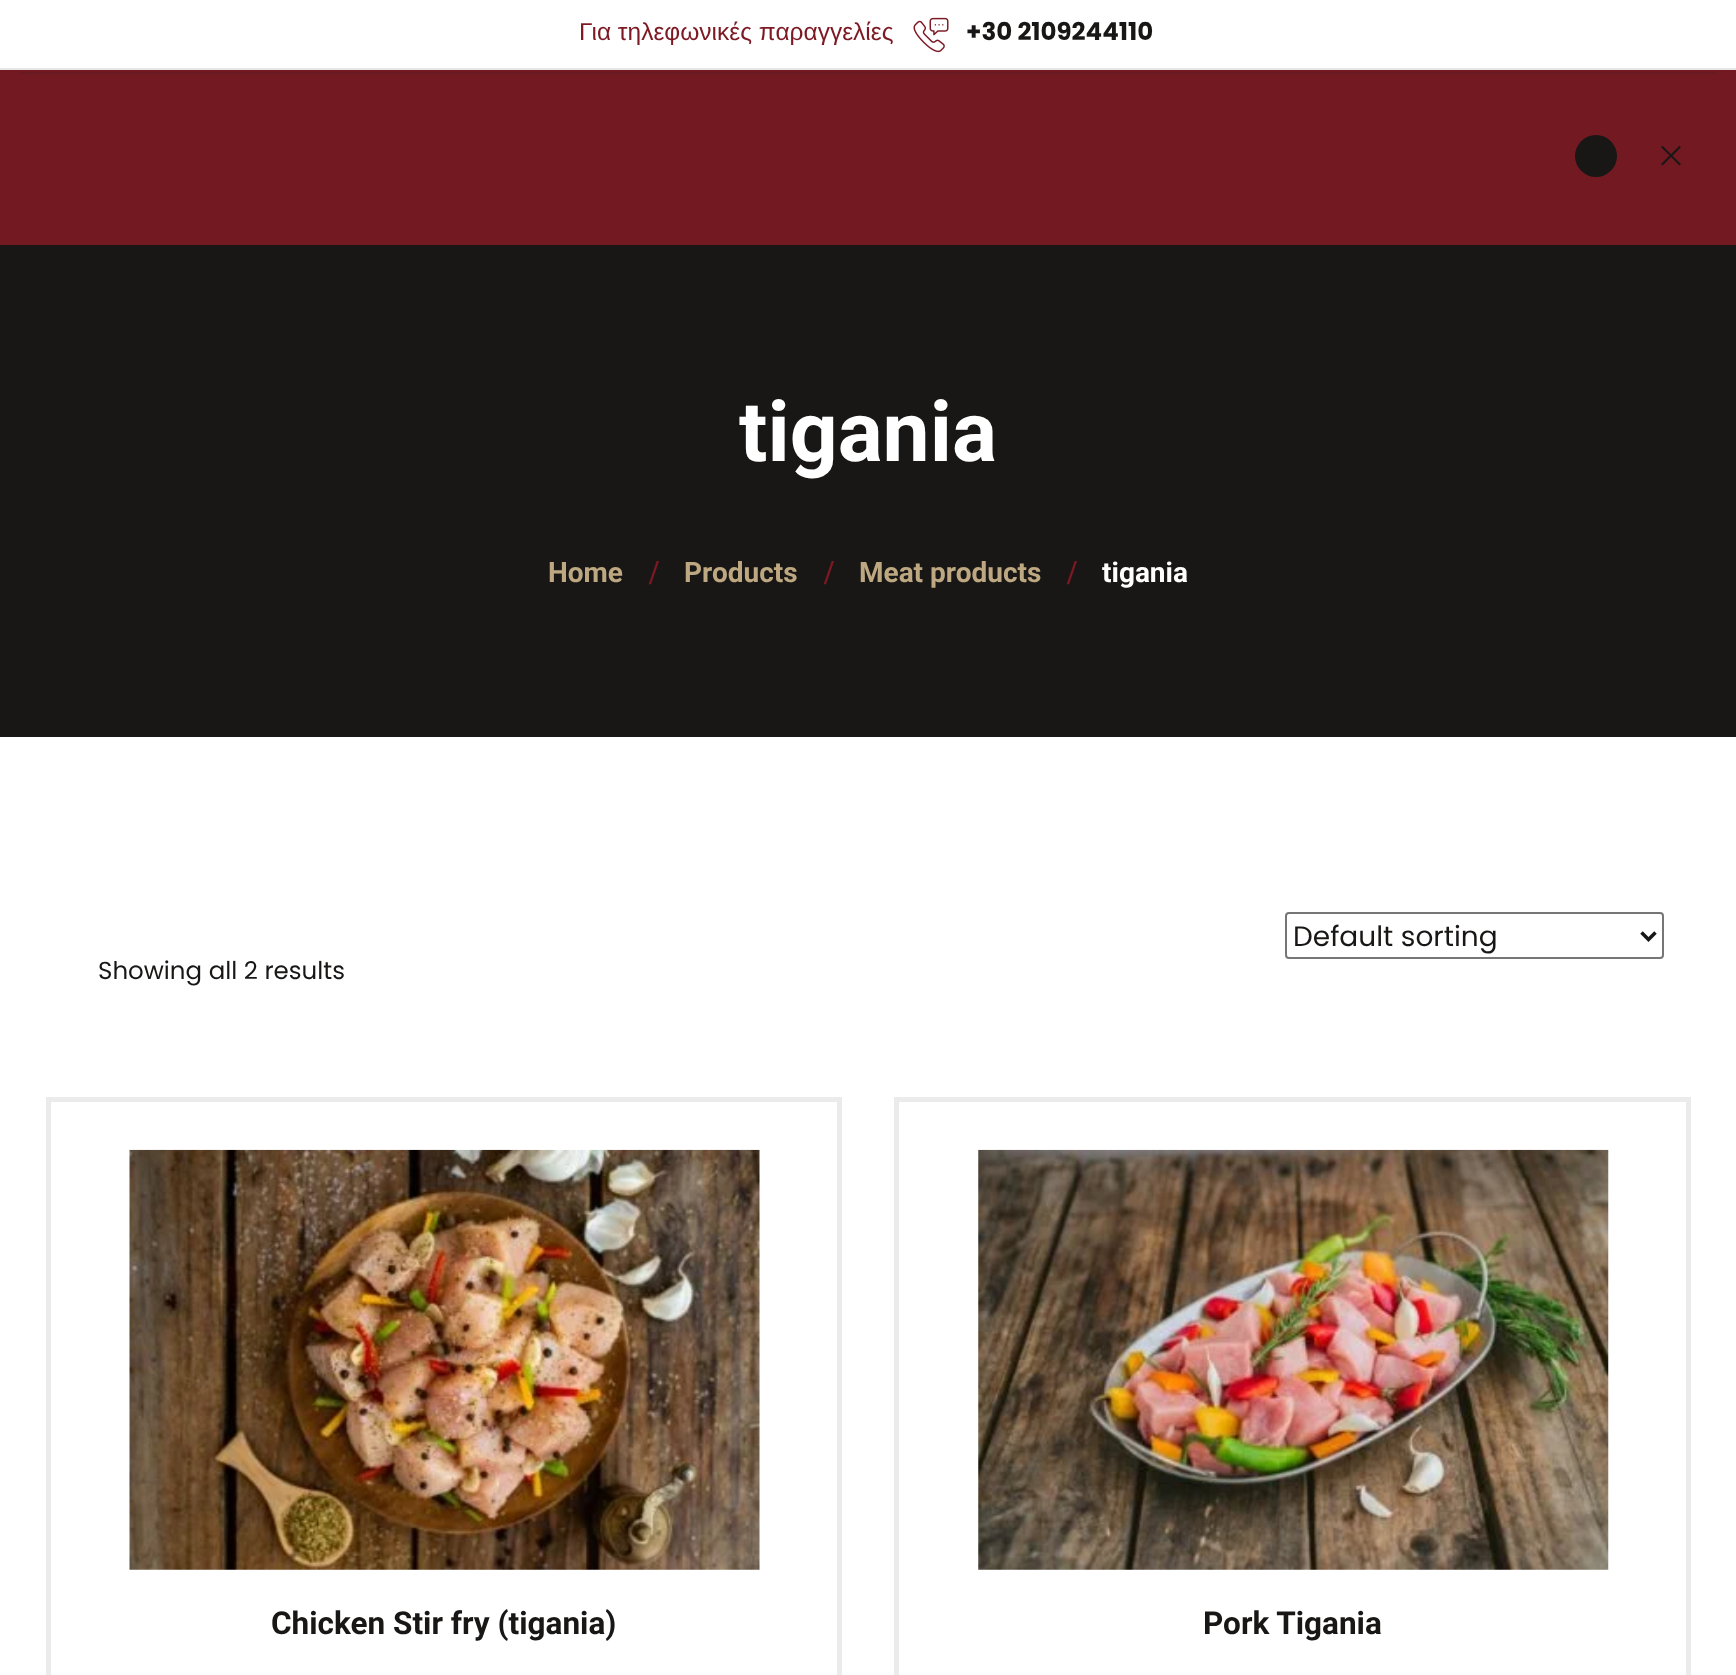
<?xml version="1.0" encoding="UTF-8"?>
<svg xmlns="http://www.w3.org/2000/svg" width="1736" height="1675">
    <rect width="100%" height="100%" fill="#FFFFFF"/>
    <rect x="0" y="245" width="1736" height="492" fill="#191716"/>
    <rect x="0" y="68" width="1736" height="2" fill="#E6E6E6"/>
    <text x="579" y="40" font-family="Liberation Sans" font-size="24.5" fill="#7C1923">Για τηλεφωνικές παραγγελίες</text>
    <image x="913" y="17" width="36" height="36" href="img_01.png"/>
    <text x="966" y="40" font-family="Poppins" font-size="24.5" font-weight="700" fill="#191716">+30 2109244110</text>
    <rect x="0" y="70" width="1736" height="175" fill="#721922"/>
    <rect x="19" y="72" width="1698" height="2" fill="#691921"/>
    <circle cx="1596" cy="156" r="21" fill="#191716"/>
    <text x="1658" y="174" font-family="Poppins" font-size="49" font-weight="200" fill="#191716">×</text>
    <text x="739" y="461" font-family="Roboto" font-size="84" font-weight="700" fill="#FFFFFF">tigania</text>
    <text x="548" y="582" font-family="Roboto" font-size="28" font-weight="700" fill="#BDA881">Home</text>
    <text x="649" y="584" font-family="Liberation Serif" font-size="35" font-weight="700" fill="#7C1923">/</text>
    <text x="684" y="582" font-family="Roboto" font-size="28" font-weight="700" fill="#BDA881">Products</text>
    <text x="824" y="584" font-family="Liberation Serif" font-size="35" font-weight="700" fill="#7C1923">/</text>
    <text x="859" y="582" font-family="Roboto" font-size="28" font-weight="700" fill="#BDA881">Meat products</text>
    <text x="1067" y="584" font-family="Liberation Serif" font-size="35" font-weight="700" fill="#7C1923">/</text>
    <text x="1102" y="582" font-family="Roboto" font-size="28" font-weight="700" fill="#FFFFFF">tigania</text>
    <rect x="1286" y="913" width="377" height="45" rx="3" fill="none" stroke="#767676" stroke-width="2"/>
    <path d="M 1641.5 932.5 L 1648.5 939.5 L 1655.5 932.5" fill="none" stroke="#191716" stroke-width="3.5"/>
    <text x="1293" y="946" font-family="Poppins" font-size="28" fill="#191716">Default sorting</text>
    <text x="98" y="979" font-family="Poppins" font-size="24.5" fill="#191716">Showing all 2 results</text>
    <image x="129" y="1149" width="631" height="421" href="img_02.png"/>
    <rect x="48.5" y="1099.5" width="791" height="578" fill="none" stroke="#EBEBEB" stroke-width="5"/>
    <text x="271" y="1634" font-family="Roboto" font-size="31.5" font-weight="700" fill="#191716">Chicken Stir fry (tigania)</text>
    <image x="978" y="1149" width="631" height="421" href="img_03.png"/>
    <rect x="896.5" y="1099.5" width="792" height="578" fill="none" stroke="#EBEBEB" stroke-width="5"/>
    <text x="1203" y="1634" font-family="Roboto" font-size="31.5" font-weight="700" fill="#191716">Pork Tigania</text>
</svg>
